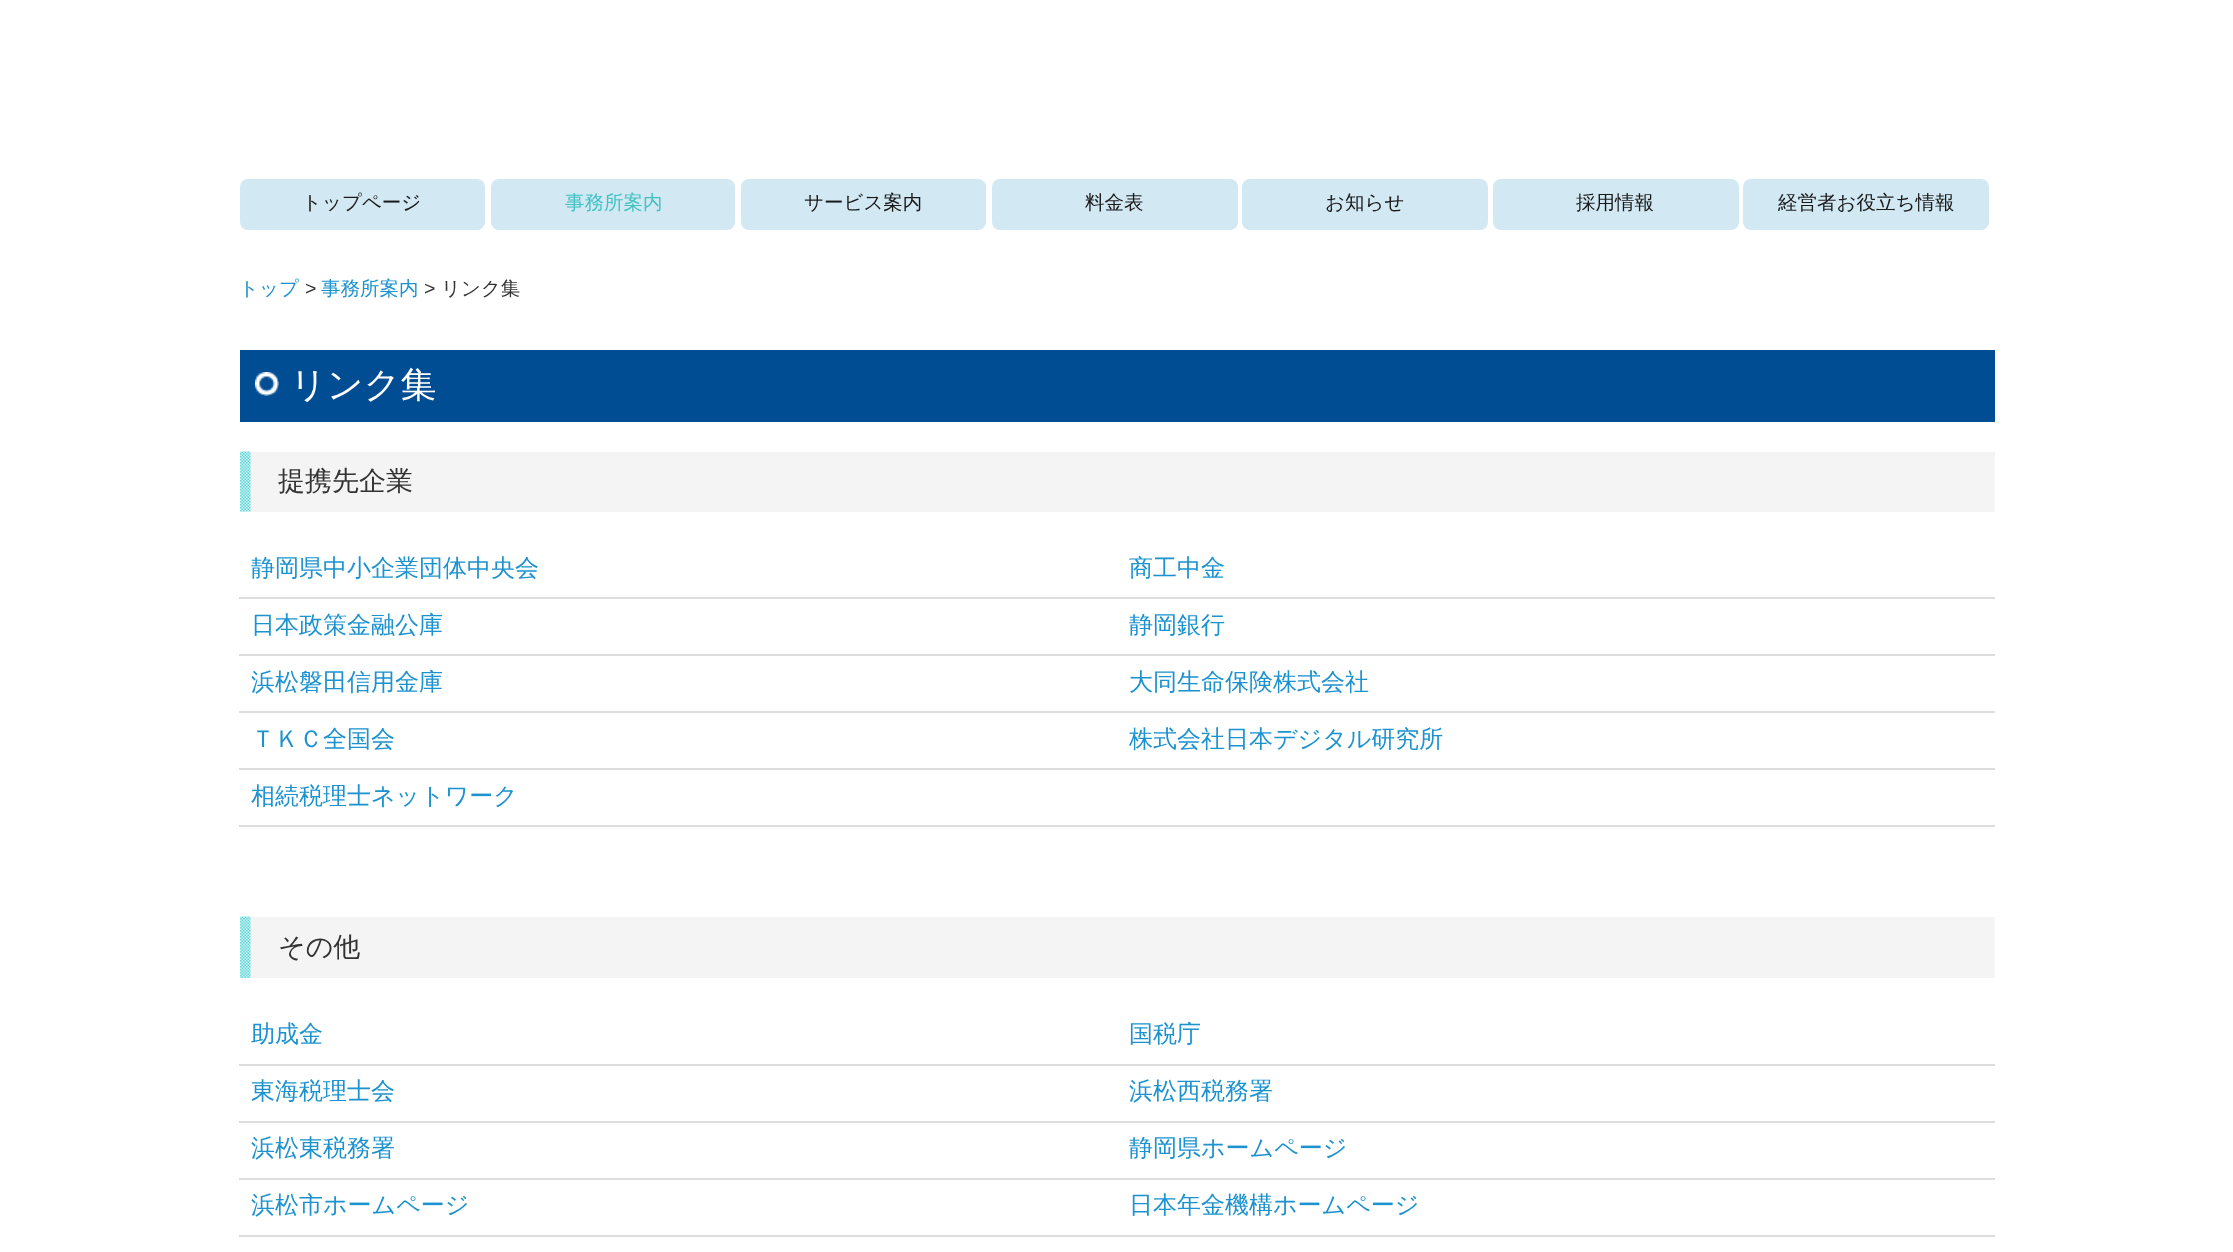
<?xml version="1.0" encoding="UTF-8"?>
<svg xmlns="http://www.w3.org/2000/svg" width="2233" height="1252">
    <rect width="100%" height="100%" fill="#FFFFFF"/>
    <rect x="240" y="179" width="245" height="51" rx="8" fill="#D2E8F3"/>
    <text x="302" y="209" font-family="WenQuanYi Zen Hei" font-size="19.5" font-weight="500" fill="#191919">トップページ</text>
    <rect x="491" y="179" width="244" height="51" rx="8" fill="#D2E8F3"/>
    <text x="565" y="209" font-family="WenQuanYi Zen Hei" font-size="19.5" font-weight="500" fill="#43C2C3">事務所案内</text>
    <rect x="741" y="179" width="245" height="51" rx="8" fill="#D2E8F3"/>
    <text x="804" y="209" font-family="WenQuanYi Zen Hei" font-size="19.5" font-weight="500" fill="#191919">サービス案内</text>
    <rect x="992" y="179" width="246" height="51" rx="8" fill="#D2E8F3"/>
    <text x="1085" y="209" font-family="WenQuanYi Zen Hei" font-size="19.5" font-weight="500" fill="#191919">料金表</text>
    <rect x="1242" y="179" width="246" height="51" rx="8" fill="#D2E8F3"/>
    <text x="1325" y="209" font-family="WenQuanYi Zen Hei" font-size="19.5" font-weight="500" fill="#191919">お知らせ</text>
    <rect x="1493" y="179" width="246" height="51" rx="8" fill="#D2E8F3"/>
    <text x="1576" y="209" font-family="WenQuanYi Zen Hei" font-size="19.5" font-weight="500" fill="#191919">採用情報</text>
    <rect x="1743" y="179" width="246" height="51" rx="8" fill="#D2E8F3"/>
    <text x="1778" y="209" font-family="WenQuanYi Zen Hei" font-size="19.5" font-weight="500" fill="#191919">経営者お役立ち情報</text>
    <text x="239" y="295" font-family="WenQuanYi Zen Hei" font-size="19.5" font-weight="500" fill="#1C92CF">トップ</text>
    <text x="305" y="295" font-family="Liberation Sans" font-size="19.5" fill="#333333">&gt;</text>
    <text x="321" y="295" font-family="WenQuanYi Zen Hei" font-size="19.5" font-weight="500" fill="#1C92CF">事務所案内</text>
    <text x="424" y="295" font-family="Liberation Sans" font-size="19.5" fill="#333333">&gt;</text>
    <text x="441" y="295" font-family="WenQuanYi Zen Hei" font-size="19.5" font-weight="500" fill="#333333">リンク集</text>
    <rect x="240" y="350" width="1755" height="72" fill="#004D93"/>
    <image x="255" y="372" width="24" height="24" href="img_01.png"/>
    <text x="290" y="397" font-family="WenQuanYi Zen Hei" font-size="36" font-weight="500" fill="#FFFFFF">リンク集</text>
    <rect x="240" y="452" width="1755" height="60" fill="#F4F4F4"/>
    <image x="240" y="451" width="11" height="61" href="img_02.png"/>
    <text x="278" y="490" font-family="WenQuanYi Zen Hei" font-size="27" font-weight="500" fill="#333333">提携先企業</text>
    <text x="251" y="576" font-family="WenQuanYi Zen Hei" font-size="24" font-weight="500" fill="#1C92CF">静岡県中小企業団体中央会</text>
    <rect x="239" y="597" width="1756" height="2" fill="#DDDDDD"/>
    <text x="1129" y="576" font-family="WenQuanYi Zen Hei" font-size="24" font-weight="500" fill="#1C92CF">商工中金</text>
    <text x="251" y="633" font-family="WenQuanYi Zen Hei" font-size="24" font-weight="500" fill="#1C92CF">日本政策金融公庫</text>
    <rect x="239" y="654" width="1756" height="2" fill="#DDDDDD"/>
    <text x="1129" y="633" font-family="WenQuanYi Zen Hei" font-size="24" font-weight="500" fill="#1C92CF">静岡銀行</text>
    <text x="251" y="690" font-family="WenQuanYi Zen Hei" font-size="24" font-weight="500" fill="#1C92CF">浜松磐田信用金庫</text>
    <rect x="239" y="711" width="1756" height="2" fill="#DDDDDD"/>
    <text x="1129" y="690" font-family="WenQuanYi Zen Hei" font-size="24" font-weight="500" fill="#1C92CF">大同生命保険株式会社</text>
    <text x="251" y="747" font-family="WenQuanYi Zen Hei" font-size="24" font-weight="500" fill="#1C92CF">ＴＫＣ全国会</text>
    <rect x="239" y="768" width="1756" height="2" fill="#DDDDDD"/>
    <text x="1129" y="747" font-family="WenQuanYi Zen Hei" font-size="24" font-weight="500" fill="#1C92CF">株式会社日本デジタル研究所</text>
    <rect x="239" y="825" width="1756" height="2" fill="#DDDDDD"/>
    <text x="251" y="804" font-family="WenQuanYi Zen Hei" font-size="24" font-weight="500" fill="#1C92CF">相続税理士ネットワーク</text>
    <rect x="250" y="917" width="1745" height="61" fill="#F4F4F4"/>
    <image x="240" y="916" width="11" height="62" href="img_03.png"/>
    <text x="278" y="956" font-family="WenQuanYi Zen Hei" font-size="27" font-weight="500" fill="#333333">その他</text>
    <text x="251" y="1042" font-family="WenQuanYi Zen Hei" font-size="24" font-weight="500" fill="#1C92CF">助成金</text>
    <rect x="239" y="1064" width="1756" height="2" fill="#DDDDDD"/>
    <text x="1129" y="1042" font-family="WenQuanYi Zen Hei" font-size="24" font-weight="500" fill="#1C92CF">国税庁</text>
    <text x="251" y="1099" font-family="WenQuanYi Zen Hei" font-size="24" font-weight="500" fill="#1C92CF">東海税理士会</text>
    <rect x="239" y="1121" width="1756" height="2" fill="#DDDDDD"/>
    <text x="1129" y="1099" font-family="WenQuanYi Zen Hei" font-size="24" font-weight="500" fill="#1C92CF">浜松西税務署</text>
    <text x="251" y="1156" font-family="WenQuanYi Zen Hei" font-size="24" font-weight="500" fill="#1C92CF">浜松東税務署</text>
    <rect x="239" y="1178" width="1756" height="2" fill="#DDDDDD"/>
    <text x="1129" y="1156" font-family="WenQuanYi Zen Hei" font-size="24" font-weight="500" fill="#1C92CF">静岡県ホームページ</text>
    <text x="251" y="1213" font-family="WenQuanYi Zen Hei" font-size="24" font-weight="500" fill="#1C92CF">浜松市ホームページ</text>
    <rect x="239" y="1235" width="1756" height="2" fill="#DDDDDD"/>
    <text x="1129" y="1213" font-family="WenQuanYi Zen Hei" font-size="24" font-weight="500" fill="#1C92CF">日本年金機構ホームページ</text>
</svg>
